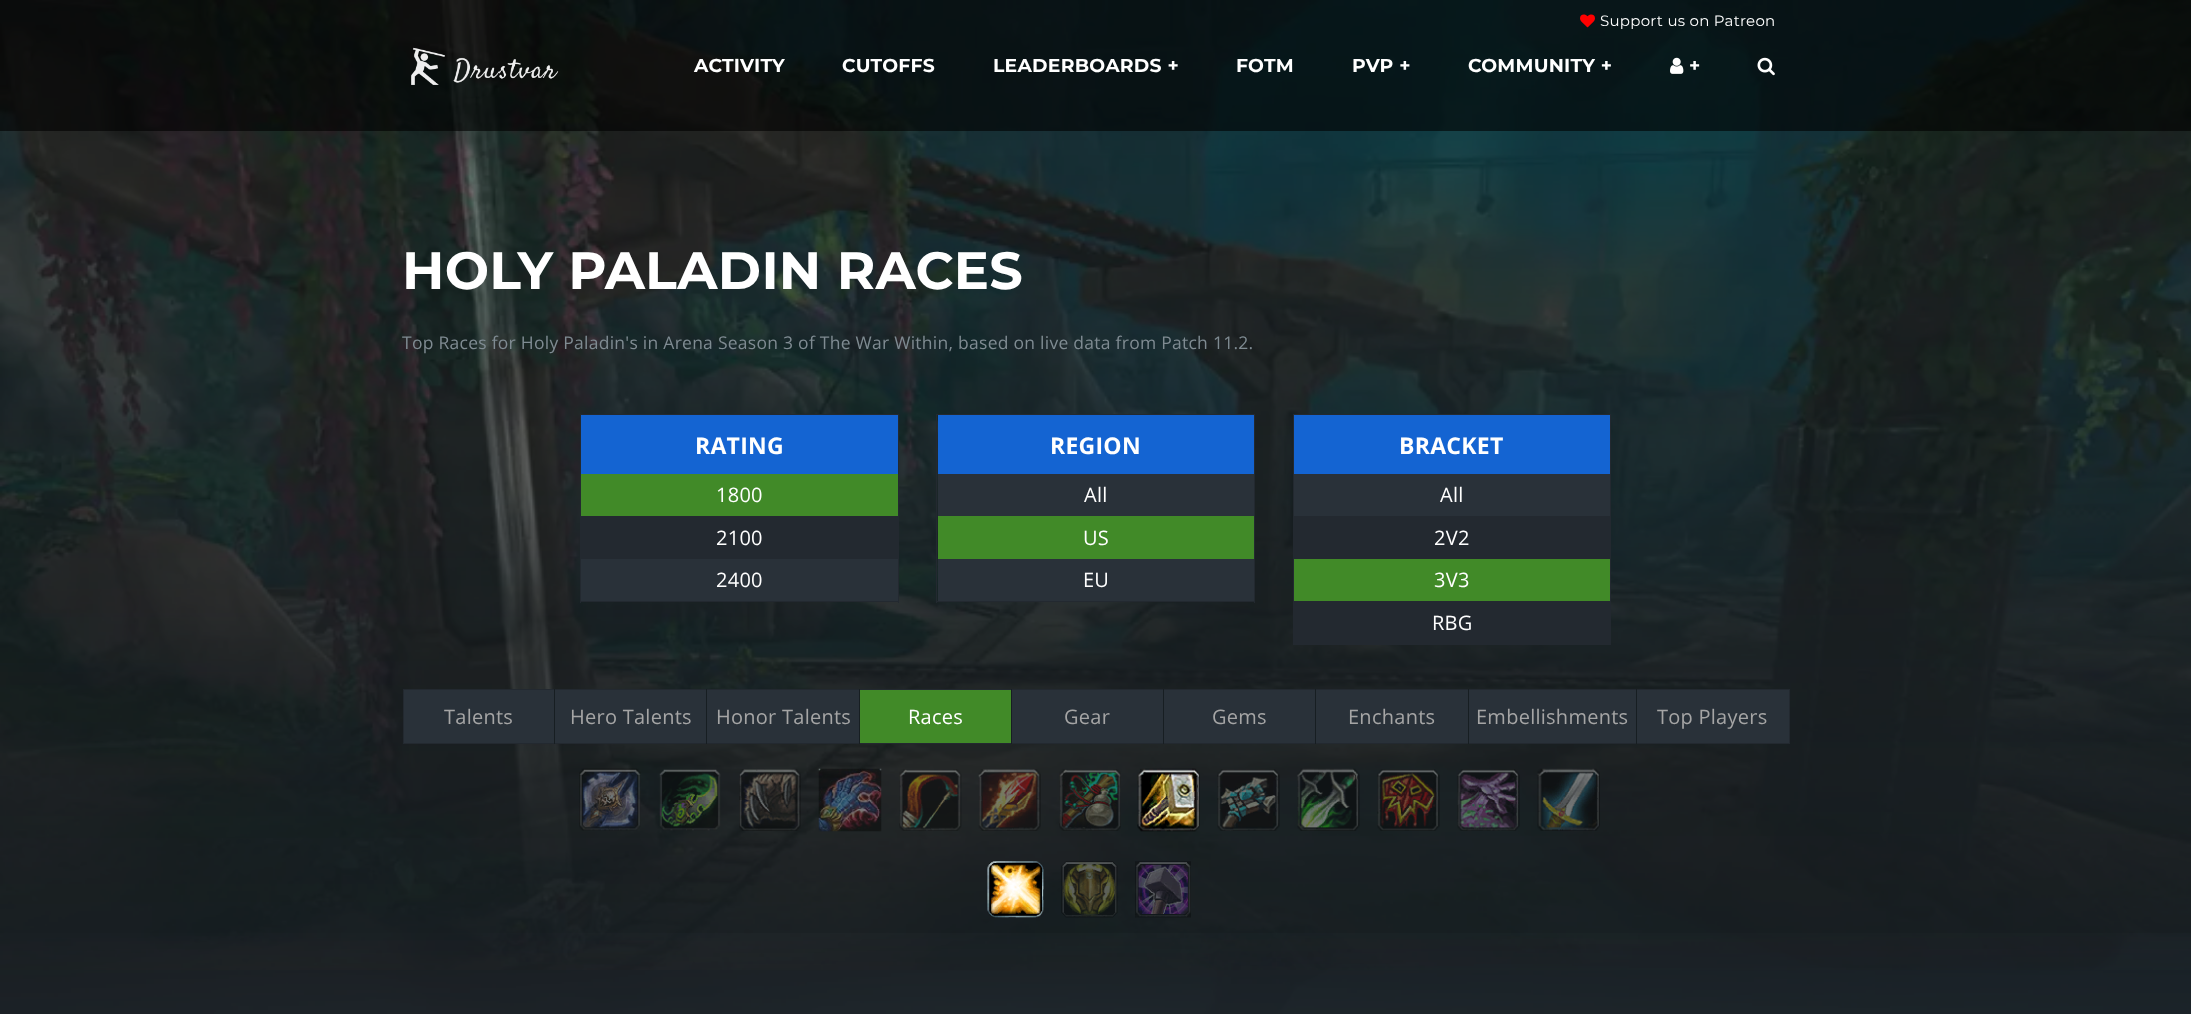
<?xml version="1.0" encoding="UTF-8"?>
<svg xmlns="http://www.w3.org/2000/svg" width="2191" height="1014">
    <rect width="100%" height="100%" fill="#171E22"/>
    <image x="0" y="0" width="2191" height="970" href="img_01.png"/>
    <rect x="0" y="0" width="2191" height="131" fill="#000000" fill-opacity="0.6"/>
    <image x="411" y="47" width="148" height="38" href="img_02.png"/>
    <image x="1580" y="14" width="15" height="14" href="img_03.png"/>
    <text x="1600" y="26" font-family="Montserrat" font-size="15" letter-spacing="0.26" fill="#FFFFFF">Support us on Patreon</text>
    <text x="694" y="72" font-family="Montserrat" font-size="18.75" font-weight="700" letter-spacing="0.26" fill="#FFFFFF">ACTIVITY</text>
    <text x="842" y="72" font-family="Montserrat" font-size="18.75" font-weight="700" letter-spacing="0.26" fill="#FFFFFF">CUTOFFS</text>
    <text x="993" y="72" font-family="Montserrat" font-size="18.75" font-weight="700" letter-spacing="0.26" fill="#FFFFFF">LEADERBOARDS +</text>
    <text x="1236" y="72" font-family="Montserrat" font-size="18.75" font-weight="700" letter-spacing="0.26" fill="#FFFFFF">FOTM</text>
    <text x="1352" y="72" font-family="Montserrat" font-size="18.75" font-weight="700" letter-spacing="0.26" fill="#FFFFFF">PVP +</text>
    <text x="1468" y="72" font-family="Montserrat" font-size="18.75" font-weight="700" letter-spacing="0.26" fill="#FFFFFF">COMMUNITY +</text>
    <image x="1670" y="57" width="14" height="17" href="img_04.png"/>
    <text x="1689" y="72" font-family="Montserrat" font-size="18.75" font-weight="700" letter-spacing="0.26" fill="#FFFFFF">+</text>
    <image x="1757" y="57" width="18" height="19" href="img_05.png"/>
    <text x="402" y="289" font-family="Montserrat" font-size="52.5" font-weight="700" letter-spacing="0.26" fill="#FFFFFF">HOLY PALADIN RACES</text>
    <text x="402" y="349" font-family="Open Sans" font-size="17.5" letter-spacing="0.26" fill="#7F8B92">Top Races for Holy Paladin's in Arena Season 3 of The War Within, based on live data from Patch 11.2.</text>
    <rect x="580" y="414" width="319" height="1" fill="#232930"/>
    <rect x="898" y="414" width="1" height="189" fill="#232930"/>
    <rect x="580" y="601" width="319" height="1" fill="#232930"/>
    <rect x="580" y="414" width="1" height="189" fill="#232930"/>
    <rect x="581" y="415" width="317" height="59" fill="#1464D2"/>
    <text x="695" y="454" font-family="Open Sans" font-size="23" font-weight="700" letter-spacing="0.26" fill="#FFFFFF">RATING</text>
    <rect x="581" y="474" width="317" height="42" fill="#418A28"/>
    <text x="716" y="502" font-family="Open Sans" font-size="20" letter-spacing="0.26" fill="#FFFFFF">1800</text>
    <rect x="581" y="516" width="317" height="43" fill="#232930"/>
    <text x="716" y="545" font-family="Open Sans" font-size="20" letter-spacing="0.26" fill="#FFFFFF">2100</text>
    <rect x="581" y="559" width="317" height="42" fill="#293139"/>
    <text x="716" y="587" font-family="Open Sans" font-size="20" letter-spacing="0.26" fill="#FFFFFF">2400</text>
    <rect x="936" y="414" width="319" height="1" fill="#232930"/>
    <rect x="1254" y="414" width="1" height="189" fill="#232930"/>
    <rect x="936" y="601" width="319" height="1" fill="#232930"/>
    <rect x="936" y="414" width="1" height="189" fill="#232930"/>
    <rect x="938" y="415" width="316" height="59" fill="#1464D2"/>
    <text x="1050" y="454" font-family="Open Sans" font-size="23" font-weight="700" letter-spacing="0.26" fill="#FFFFFF">REGION</text>
    <rect x="938" y="474" width="316" height="42" fill="#293139"/>
    <text x="1084" y="502" font-family="Open Sans" font-size="20" letter-spacing="0.26" fill="#FFFFFF">All</text>
    <rect x="938" y="516" width="316" height="43" fill="#418A28"/>
    <text x="1083" y="545" font-family="Open Sans" font-size="20" letter-spacing="0.26" fill="#FFFFFF">US</text>
    <rect x="938" y="559" width="316" height="42" fill="#293139"/>
    <text x="1083" y="587" font-family="Open Sans" font-size="20" letter-spacing="0.26" fill="#FFFFFF">EU</text>
    <rect x="1293" y="414" width="318" height="1" fill="#232930"/>
    <rect x="1610" y="414" width="1" height="231" fill="#232930"/>
    <rect x="1293" y="644" width="318" height="1" fill="#232930"/>
    <rect x="1293" y="414" width="1" height="231" fill="#232930"/>
    <rect x="1294" y="415" width="316" height="59" fill="#1464D2"/>
    <text x="1399" y="454" font-family="Open Sans" font-size="23" font-weight="700" letter-spacing="0.26" fill="#FFFFFF">BRACKET</text>
    <rect x="1294" y="474" width="316" height="42" fill="#293139"/>
    <text x="1440" y="502" font-family="Open Sans" font-size="20" letter-spacing="0.26" fill="#FFFFFF">All</text>
    <rect x="1294" y="516" width="316" height="43" fill="#232930"/>
    <text x="1434" y="545" font-family="Open Sans" font-size="20" letter-spacing="0.26" fill="#FFFFFF">2V2</text>
    <rect x="1294" y="559" width="316" height="42" fill="#418A28"/>
    <text x="1434" y="587" font-family="Open Sans" font-size="20" letter-spacing="0.26" fill="#FFFFFF">3V3</text>
    <rect x="1294" y="601" width="316" height="43" fill="#232930"/>
    <text x="1432" y="630" font-family="Open Sans" font-size="20" letter-spacing="0.26" fill="#FFFFFF">RBG</text>
    <rect x="403" y="689" width="1387" height="1" fill="#232930"/>
    <rect x="1789" y="689" width="1" height="55" fill="#232930"/>
    <rect x="403" y="743" width="1387" height="1" fill="#232930"/>
    <rect x="403" y="689" width="1" height="55" fill="#232930"/>
    <rect x="404" y="690" width="1385" height="53" fill="#293139"/>
    <text x="444" y="724" font-family="Open Sans" font-size="20" letter-spacing="0.26" fill="#A5A5A5">Talents</text>
    <rect x="554" y="689" width="1" height="55" fill="#171E22"/>
    <text x="570" y="724" font-family="Open Sans" font-size="20" letter-spacing="0.26" fill="#A5A5A5">Hero Talents</text>
    <rect x="706" y="689" width="1" height="55" fill="#171E22"/>
    <text x="716" y="724" font-family="Open Sans" font-size="20" letter-spacing="0.26" fill="#A5A5A5">Honor Talents</text>
    <rect x="860" y="690" width="151" height="53" fill="#418A28"/>
    <rect x="859" y="689" width="1" height="55" fill="#171E22"/>
    <text x="908" y="724" font-family="Open Sans" font-size="20" letter-spacing="0.26" fill="#FFFFFF">Races</text>
    <rect x="1011" y="689" width="1" height="55" fill="#171E22"/>
    <text x="1064" y="724" font-family="Open Sans" font-size="20" letter-spacing="0.26" fill="#A5A5A5">Gear</text>
    <rect x="1163" y="689" width="1" height="55" fill="#171E22"/>
    <text x="1212" y="724" font-family="Open Sans" font-size="20" letter-spacing="0.26" fill="#A5A5A5">Gems</text>
    <rect x="1315" y="689" width="1" height="55" fill="#171E22"/>
    <text x="1348" y="724" font-family="Open Sans" font-size="20" letter-spacing="0.26" fill="#A5A5A5">Enchants</text>
    <rect x="1468" y="689" width="1" height="55" fill="#171E22"/>
    <text x="1476" y="724" font-family="Open Sans" font-size="20" letter-spacing="0.26" fill="#A5A5A5">Embellishments</text>
    <rect x="1636" y="689" width="1" height="55" fill="#171E22"/>
    <text x="1657" y="724" font-family="Open Sans" font-size="20" letter-spacing="0.26" fill="#A5A5A5">Top Players</text>
    <image x="579" y="768" width="62" height="63" href="img_06.png"/>
    <image x="659" y="769" width="62" height="62" href="img_07.png"/>
    <image x="739" y="769" width="62" height="62" href="img_08.png"/>
    <image x="818" y="768" width="64" height="64" href="img_09.png"/>
    <image x="899" y="769" width="63" height="62" href="img_10.png"/>
    <image x="978" y="769" width="63" height="62" href="img_11.png"/>
    <image x="1059" y="769" width="62" height="62" href="img_12.png"/>
    <image x="1137" y="768" width="63" height="64" href="img_13.png"/>
    <image x="1217" y="769" width="63" height="62" href="img_14.png"/>
    <image x="1297" y="768" width="63" height="63" href="img_15.png"/>
    <image x="1377" y="769" width="63" height="62" href="img_16.png"/>
    <image x="1457" y="769" width="63" height="62" href="img_17.png"/>
    <image x="1537" y="768" width="63" height="63" href="img_18.png"/>
    <image x="987" y="861" width="57" height="57" href="img_19.png"/>
    <image x="1061" y="861" width="57" height="57" href="img_20.png"/>
    <image x="1135" y="861" width="56" height="57" href="img_21.png"/>
    <image x="0" y="933" width="2191" height="81" href="img_22.png"/>
</svg>
